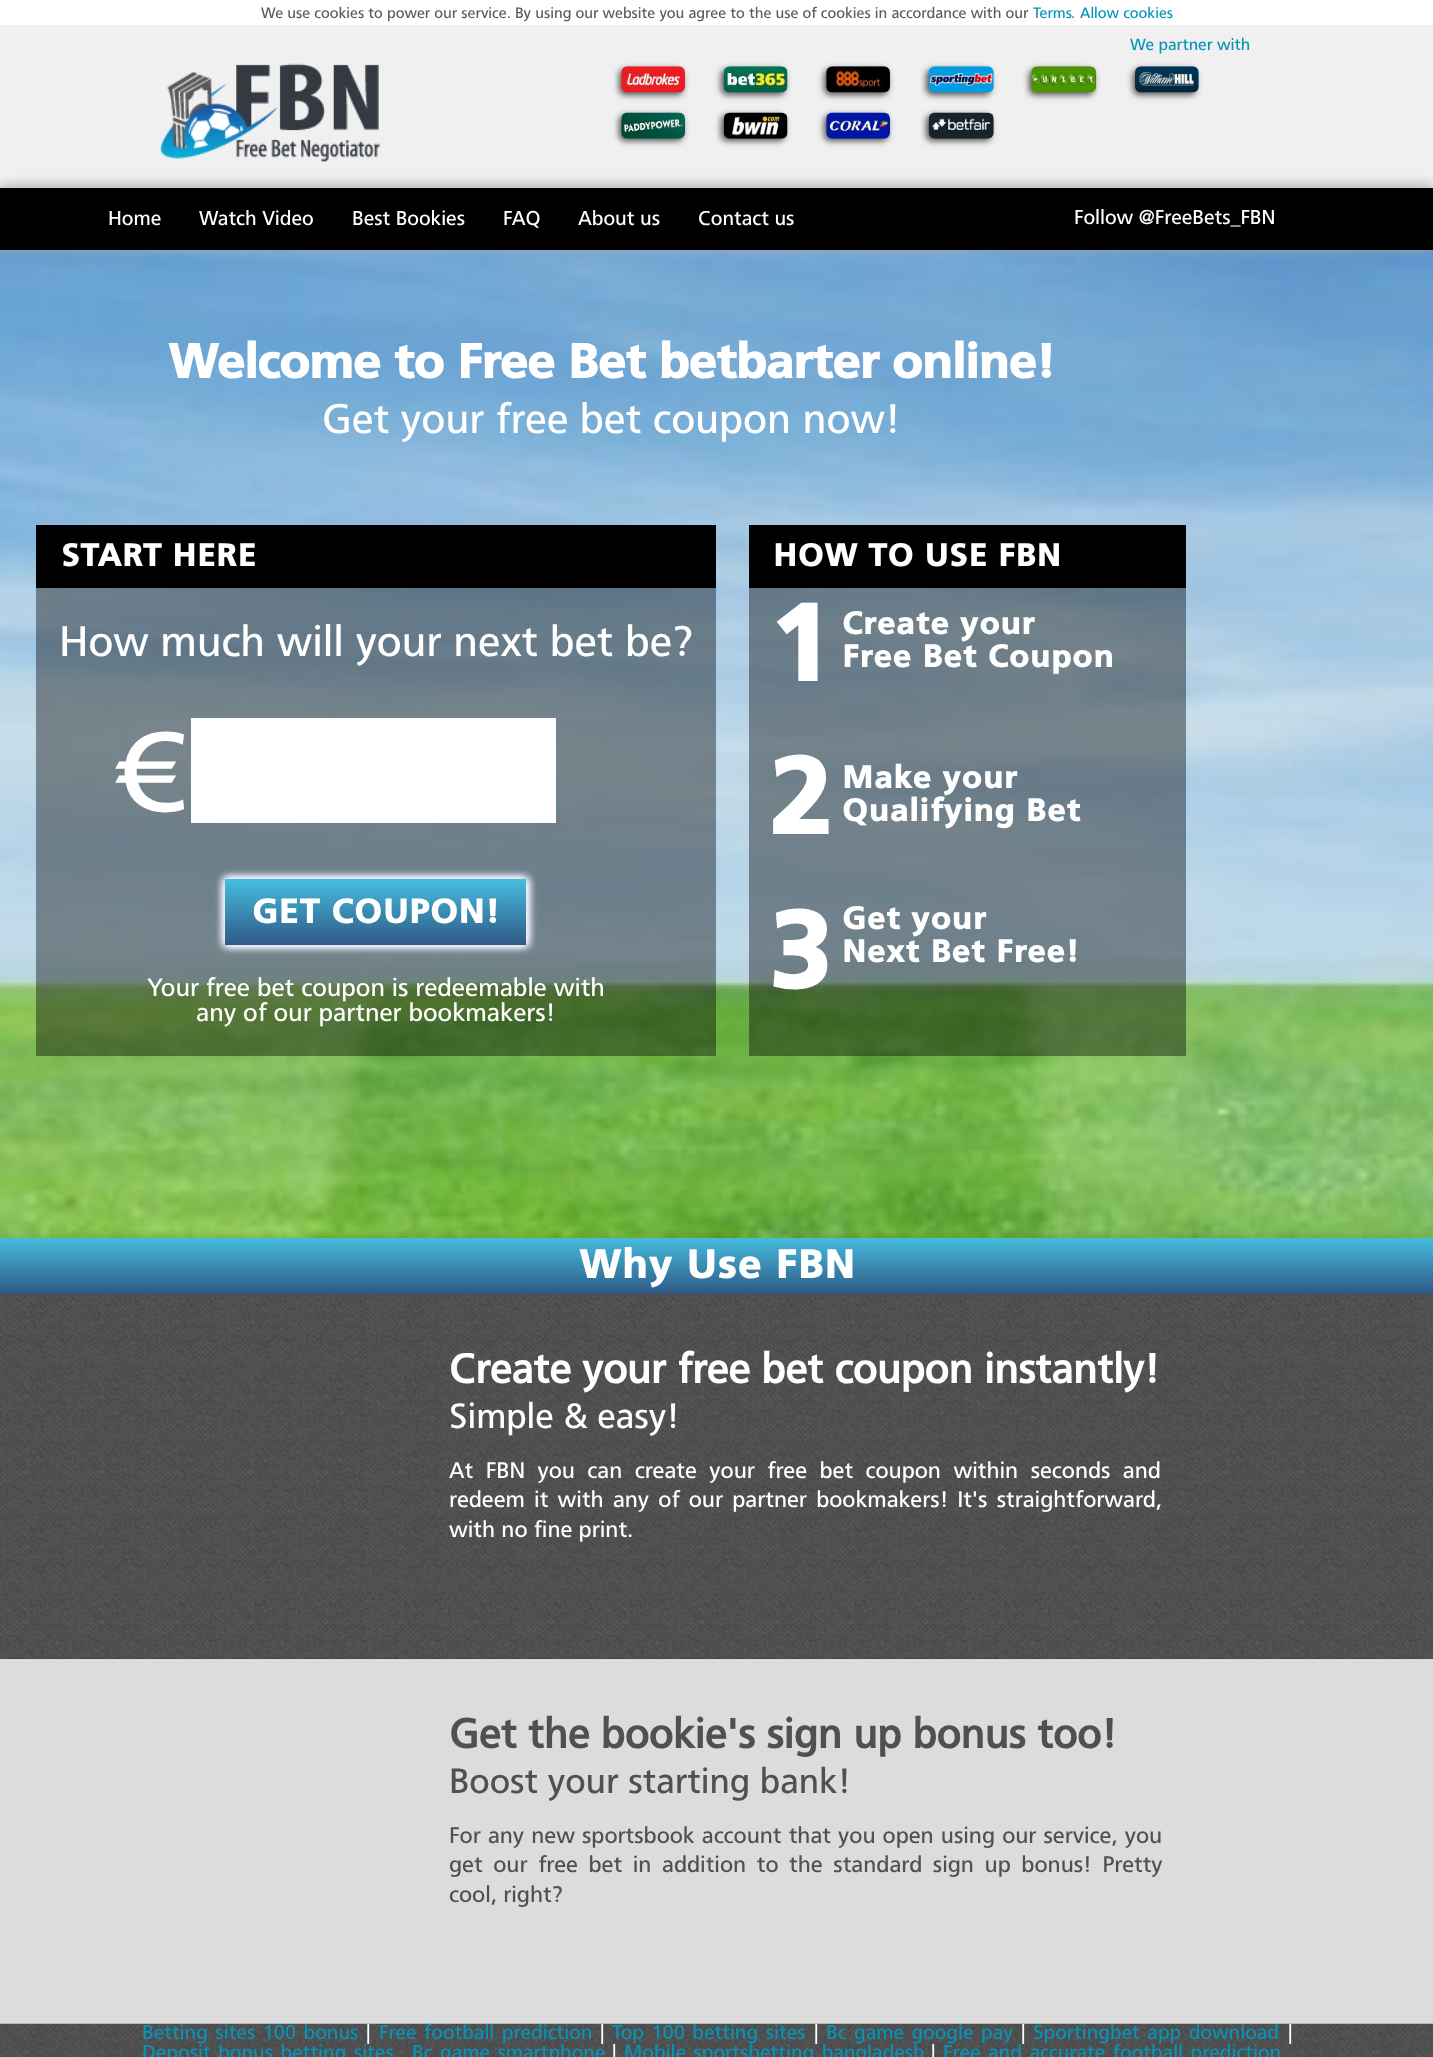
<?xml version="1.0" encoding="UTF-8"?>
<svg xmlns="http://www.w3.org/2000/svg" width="1433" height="2057">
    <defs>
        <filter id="blur1" x="-50%" y="-200%" width="200%" height="500%"><feGaussianBlur stdDeviation="3"/></filter>
        <filter id="blur2" x="-50%" y="-200%" width="200%" height="500%"><feGaussianBlur stdDeviation="6"/></filter>
        <filter id="blur3" x="-50%" y="-200%" width="200%" height="500%"><feGaussianBlur stdDeviation="4"/></filter>
        <linearGradient id="g1" gradientUnits="userSpaceOnUse" x1="376" y1="879" x2="376" y2="945"><stop offset="0" stop-color="#46BEDF"/><stop offset="1" stop-color="#2E5985"/></linearGradient>
        <filter id="blur4" x="-50%" y="-200%" width="200%" height="500%"><feGaussianBlur stdDeviation="7"/></filter>
        <linearGradient id="g2" gradientUnits="userSpaceOnUse" x1="717" y1="1237" x2="717" y2="1294"><stop offset="0" stop-color="#46BEDF"/><stop offset="1" stop-color="#2E5985"/></linearGradient>
    </defs>
    <rect width="100%" height="100%" fill="#FFFFFF"/>
    <image x="0" y="250" width="1433" height="1409" href="img_01.png"/>
    <text x="261" y="18" font-family="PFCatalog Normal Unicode" font-size="15" fill="#585C63">We use cookies to power our service. By using our website you agree to the use of cookies in accordance with our</text>
    <text x="1033" y="18" font-family="PFCatalog Normal Unicode" font-size="15" fill="#0694B8">Terms</text>
    <text x="1071" y="18" font-family="PFCatalog Normal Unicode" font-size="15" fill="#585C63">.</text>
    <text x="1080" y="18" font-family="PFCatalog Normal Unicode" font-size="15" fill="#0694B8">Allow cookies</text>
    <rect x="0" y="25" width="1433" height="163" fill="#F0F0F0"/>
    <text x="1130" y="50" font-family="PFCatalog Normal Unicode" font-size="16.25" fill="#0694B8">We partner with</text>
    <image x="160" y="63" width="221" height="99" href="img_02.png"/>
    <rect x="619" y="69" width="64" height="26" rx="6" fill="#555555" filter="url(#blur1)"/>
    <image x="621" y="66" width="64" height="27" href="img_03.png"/>
    <rect x="721" y="69" width="64" height="26" rx="6" fill="#555555" filter="url(#blur1)"/>
    <image x="723" y="66" width="65" height="27" href="img_04.png"/>
    <rect x="824" y="69" width="64" height="26" rx="6" fill="#555555" filter="url(#blur1)"/>
    <image x="826" y="66" width="64" height="27" href="img_05.png"/>
    <rect x="926" y="69" width="65" height="26" rx="6" fill="#555555" filter="url(#blur1)"/>
    <image x="928" y="66" width="66" height="27" href="img_06.png"/>
    <rect x="1029" y="69" width="65" height="26" rx="6" fill="#555555" filter="url(#blur1)"/>
    <image x="1031" y="66" width="66" height="27" href="img_07.png"/>
    <rect x="1133" y="69" width="63" height="26" rx="6" fill="#555555" filter="url(#blur1)"/>
    <image x="1135" y="66" width="64" height="27" href="img_08.png"/>
    <rect x="619" y="115" width="64" height="26" rx="6" fill="#555555" filter="url(#blur1)"/>
    <image x="621" y="112" width="64" height="27" href="img_09.png"/>
    <rect x="721" y="115" width="64" height="26" rx="6" fill="#555555" filter="url(#blur1)"/>
    <image x="723" y="112" width="65" height="27" href="img_10.png"/>
    <rect x="824" y="115" width="64" height="26" rx="6" fill="#555555" filter="url(#blur1)"/>
    <image x="826" y="112" width="64" height="27" href="img_11.png"/>
    <rect x="926" y="115" width="65" height="26" rx="6" fill="#555555" filter="url(#blur1)"/>
    <image x="928" y="112" width="66" height="27" href="img_12.png"/>
    <rect x="0" y="185" width="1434" height="63" fill="#B1AFAF" filter="url(#blur2)"/>
    <rect x="0" y="188" width="1433" height="62" fill="#000000"/>
    <text x="108" y="225" font-family="PFCatalog Normal Unicode" font-size="20" fill="#FFFFFF">Home</text>
    <text x="199" y="225" font-family="PFCatalog Normal Unicode" font-size="20" fill="#FFFFFF">Watch Video</text>
    <text x="352" y="225" font-family="PFCatalog Normal Unicode" font-size="20" fill="#FFFFFF">Best Bookies</text>
    <text x="503" y="225" font-family="PFCatalog Normal Unicode" font-size="20" fill="#FFFFFF">FAQ</text>
    <text x="578" y="225" font-family="PFCatalog Normal Unicode" font-size="20" fill="#FFFFFF">About us</text>
    <text x="698" y="225" font-family="PFCatalog Normal Unicode" font-size="20" fill="#FFFFFF">Contact us</text>
    <text x="1074" y="224" font-family="PFCatalog Normal Unicode" font-size="20" fill="#FFFFFF">Follow @FreeBets_FBN</text>
    <text x="168" y="378" font-family="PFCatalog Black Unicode" font-size="50" font-weight="900" letter-spacing="-2.5" fill="#FFFFFF">Welcome to Free Bet betbarter online!</text>
    <text x="322" y="433" font-family="PFCatalog Normal Unicode" font-size="41.25" fill="#FFFFFF">Get your free bet coupon now!</text>
    <rect x="36" y="588" width="680" height="468" fill="#000000" fill-opacity="0.4"/>
    <rect x="36" y="525" width="680" height="63" fill="#000000"/>
    <text x="61" y="566" font-family="PFCatalog Black Unicode" font-size="32.5" font-weight="900" fill="#FFFFFF">START HERE</text>
    <text x="59" y="656" font-family="PFCatalog Normal Unicode" font-size="42.5" fill="#FFFFFF">How much will your next bet be?</text>
    <text x="114" y="811" font-family="PFCatalog Normal Unicode" font-size="112" fill="#FFFFFF">€</text>
    <rect x="191" y="718" width="365" height="105" fill="#FFFFFF"/>
    <rect x="226" y="878" width="302" height="66" fill="#F2F2FD" filter="url(#blur3)"/>
    <rect x="224" y="880" width="301" height="66" fill="#F2F2FD" filter="url(#blur3)"/>
    <rect x="226" y="880" width="302" height="66" fill="#F2F2FD" filter="url(#blur3)"/>
    <rect x="224" y="878" width="301" height="66" fill="#F2F2FD" filter="url(#blur3)"/>
    <rect x="225" y="879" width="301" height="66" fill="url(#g1)"/>
    <text x="252" y="923" font-family="PFCatalog Black Unicode" font-size="35" font-weight="900" fill="#FFFFFF">GET COUPON!</text>
    <text x="147" y="996" font-family="PFCatalog Normal Unicode" font-size="25" fill="#FFFFFF">Your free bet coupon is redeemable with</text>
    <text x="196" y="1021" font-family="PFCatalog Normal Unicode" font-size="25" fill="#FFFFFF">any of our partner bookmakers!</text>
    <rect x="749" y="588" width="437" height="468" fill="#000000" fill-opacity="0.4"/>
    <rect x="749" y="525" width="437" height="63" fill="#000000"/>
    <text x="773" y="566" font-family="PFCatalog Black Unicode" font-size="32.5" font-weight="900" fill="#FFFFFF">HOW TO USE FBN</text>
    <text x="768" y="681" font-family="PFCatalog Black Unicode" font-size="112" font-weight="900" fill="#FFFFFF">1</text>
    <text font-family="PFCatalog Black Unicode" font-size="32.5" font-weight="900" fill="#FFFFFF">
        <tspan x="842" y="634">Create your</tspan>
        <tspan x="842" y="667">Free Bet Coupon</tspan>
    </text>
    <text x="768" y="834" font-family="PFCatalog Black Unicode" font-size="112" font-weight="900" fill="#FFFFFF">2</text>
    <text font-family="PFCatalog Black Unicode" font-size="32.5" font-weight="900" fill="#FFFFFF">
        <tspan x="842" y="788">Make your</tspan>
        <tspan x="842" y="821">Qualifying Bet</tspan>
    </text>
    <text x="768" y="988" font-family="PFCatalog Black Unicode" font-size="112" font-weight="900" fill="#FFFFFF">3</text>
    <text font-family="PFCatalog Black Unicode" font-size="32.5" font-weight="900" fill="#FFFFFF">
        <tspan x="842" y="929">Get your</tspan>
        <tspan x="842" y="962">Next Bet Free!</tspan>
    </text>
    <rect x="1" y="1246" width="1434" height="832" fill="#263718" filter="url(#blur4)"/>
    <rect x="0" y="1238" width="1433" height="56" fill="url(#g2)"/>
    <text x="579" y="1278" font-family="PFCatalog Black Unicode" font-size="41.25" font-weight="900" fill="#FFFFFF">Why Use FBN</text>
    <image x="0" y="1293" width="1433" height="366" href="img_13.png"/>
    <text x="449" y="1383" font-family="PFCatalog Normal Unicode" font-size="41.25" font-weight="700" fill="#FFFFFF">Create your free bet coupon instantly!</text>
    <text x="449" y="1428" font-family="PFCatalog Normal Unicode" font-size="35" fill="#FFFFFF">Simple &amp; easy!</text>
    <text font-family="PFCatalog Normal Unicode" font-size="22.5" fill="#FFFFFF">
        <tspan x="449" y="1478" word-spacing="6.25">At FBN you can create your free bet coupon within seconds and</tspan>
        <tspan x="449" y="1507" word-spacing="3">redeem it with any of our partner bookmakers! It's straightforward,</tspan>
        <tspan x="449" y="1537">with no fine print.</tspan>
    </text>
    <rect x="0" y="1659" width="1433" height="365" fill="#DCDCDC"/>
    <text x="449" y="1748" font-family="PFCatalog Normal Unicode" font-size="41.25" font-weight="700" fill="#505050">Get the bookie's sign up bonus too!</text>
    <text x="449" y="1793" font-family="PFCatalog Normal Unicode" font-size="35" fill="#505050">Boost your starting bank!</text>
    <text font-family="PFCatalog Normal Unicode" font-size="22.5" fill="#505050">
        <tspan x="449" y="1843" word-spacing="0.9">For any new sportsbook account that you open using our service, you</tspan>
        <tspan x="449" y="1872" word-spacing="4.4">get our free bet in addition to the standard sign up bonus! Pretty</tspan>
        <tspan x="449" y="1902">cool, right?</tspan>
    </text>
    <image x="0" y="2023" width="1433" height="34" href="img_14.png"/>
    <text x="142" y="2039" word-spacing="2" font-family="PFCatalog Normal Unicode" font-size="20" fill="#0694B8">Betting sites 100 bonus</text>
    <text x="366" y="2039" font-family="PFCatalog Normal Unicode" font-size="20" fill="#FFFFFF">|</text>
    <text x="379" y="2039" word-spacing="2" font-family="PFCatalog Normal Unicode" font-size="20" fill="#0694B8">Free football prediction</text>
    <text x="600" y="2039" font-family="PFCatalog Normal Unicode" font-size="20" fill="#FFFFFF">|</text>
    <text x="612" y="2039" word-spacing="2" font-family="PFCatalog Normal Unicode" font-size="20" fill="#0694B8">Top 100 betting sites</text>
    <text x="814" y="2039" font-family="PFCatalog Normal Unicode" font-size="20" fill="#FFFFFF">|</text>
    <text x="826" y="2039" word-spacing="2" font-family="PFCatalog Normal Unicode" font-size="20" fill="#0694B8">Bc game google pay</text>
    <text x="1021" y="2039" font-family="PFCatalog Normal Unicode" font-size="20" fill="#FFFFFF">|</text>
    <text x="1033" y="2039" word-spacing="2" font-family="PFCatalog Normal Unicode" font-size="20" fill="#0694B8">Sportingbet app download</text>
    <text x="1288" y="2039" font-family="PFCatalog Normal Unicode" font-size="20" fill="#FFFFFF">|</text>
    <text x="142" y="2059" word-spacing="2" font-family="PFCatalog Normal Unicode" font-size="20" fill="#0694B8">Deposit bonus betting sites</text>
    <text x="412" y="2059" word-spacing="2" font-family="PFCatalog Normal Unicode" font-size="20" fill="#0694B8">Bc game smartphone</text>
    <text x="612" y="2059" font-family="PFCatalog Normal Unicode" font-size="20" fill="#FFFFFF">|</text>
    <text x="624" y="2059" word-spacing="2" font-family="PFCatalog Normal Unicode" font-size="20" fill="#0694B8">Mobile sportsbetting bangladesh</text>
    <text x="931" y="2059" font-family="PFCatalog Normal Unicode" font-size="20" fill="#FFFFFF">|</text>
    <text x="943" y="2059" word-spacing="2" font-family="PFCatalog Normal Unicode" font-size="20" fill="#0694B8">Free and accurate football prediction</text>
</svg>
